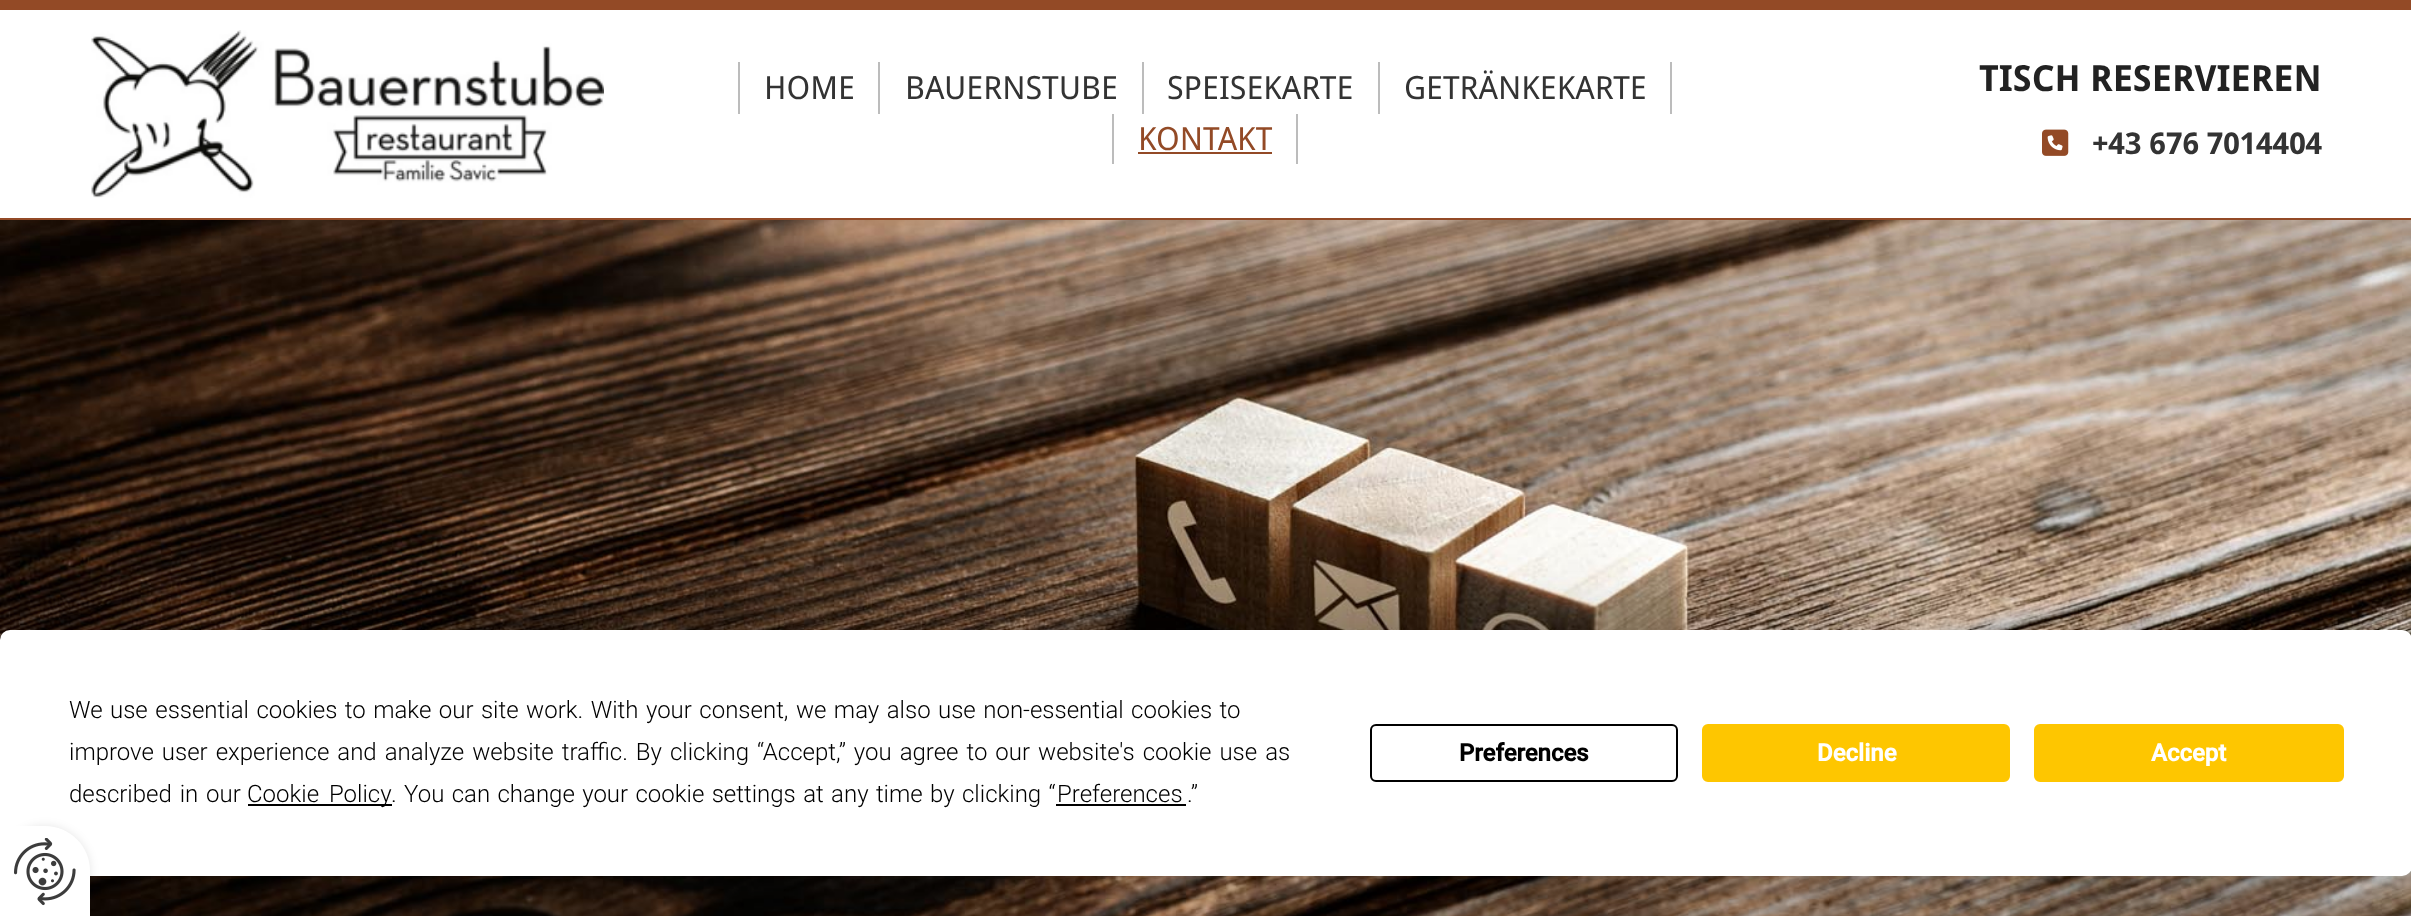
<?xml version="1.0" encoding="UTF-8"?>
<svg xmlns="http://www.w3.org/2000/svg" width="2411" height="916">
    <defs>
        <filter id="blur1" x="-50%" y="-200%" width="200%" height="500%"><feGaussianBlur stdDeviation="35"/></filter>
        <filter id="blur2" x="-50%" y="-200%" width="200%" height="500%"><feGaussianBlur stdDeviation="5"/></filter>
    </defs>
    <rect width="100%" height="100%" fill="#FFFFFF"/>
    <rect x="0" y="0" width="2411" height="10" fill="#934A26"/>
    <rect x="0" y="218" width="2411" height="2" fill="#934A26"/>
    <image x="91" y="30" width="513" height="168" href="img_01.png"/>
    <rect x="878" y="62" width="2" height="52" fill="#BCBCBC"/>
    <rect x="738" y="62" width="2" height="52" fill="#BCBCBC"/>
    <text x="764" y="99" font-family="Droid Sans" font-size="32" fill="#333333">HOME</text>
    <rect x="1142" y="62" width="2" height="52" fill="#BCBCBC"/>
    <text x="905" y="99" font-family="Droid Sans" font-size="32" fill="#333333">BAUERNSTUBE</text>
    <rect x="1378" y="62" width="2" height="52" fill="#BCBCBC"/>
    <text x="1167" y="99" font-family="Droid Sans" font-size="32" fill="#333333">SPEISEKARTE</text>
    <rect x="1670" y="62" width="2" height="52" fill="#BCBCBC"/>
    <text x="1404" y="99" font-family="Droid Sans" font-size="32" fill="#333333">GETRÄNKEKARTE</text>
    <rect x="1296" y="114" width="2" height="50" fill="#BCBCBC"/>
    <rect x="1112" y="114" width="2" height="50" fill="#BCBCBC"/>
    <text x="1138" y="150" font-family="Droid Sans" font-size="32" fill="#934A26">KONTAKT</text>
    <rect x="1138" y="152" width="134" height="2" fill="#934A26"/>
    <text x="1979" y="91" font-family="Droid Sans" font-size="36" font-weight="700" fill="#222222">TISCH RESERVIEREN</text>
    <image x="2042" y="129" width="27" height="27" href="img_02.png"/>
    <text x="2092" y="154" font-family="Droid Sans" font-size="30" font-weight="700" fill="#333333">+43 676 7014404</text>
    <image x="0" y="220" width="2411" height="696" href="img_03.png"/>
    <rect x="0" y="630" width="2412" height="246" rx="10" fill="#000000" fill-opacity="0.25" filter="url(#blur1)"/>
    <rect x="0" y="630" width="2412" height="246" rx="10" fill="#FFFFFF"/>
    <text font-family="Roboto" font-size="24" font-weight="300" fill="#000000">
        <tspan x="69" y="718" word-spacing="1.6">We use essential cookies to make our site work. With your consent, we may also use non-essential cookies to</tspan>
        <tspan x="69" y="760" word-spacing="2.1">improve user experience and analyze website traffic. By clicking “Accept,” you agree to our website's cookie use as</tspan>
        <tspan x="69" y="802" word-spacing="2">described in our</tspan>
    </text>
    <rect x="248" y="804" width="144" height="2" fill="#000000"/>
    <text x="247" y="802" word-spacing="4" font-family="Roboto" font-size="24" font-weight="300" fill="#000000">Cookie Policy</text>
    <text x="391" y="802" word-spacing="1.5" font-family="Roboto" font-size="24" font-weight="300" fill="#000000">. You can change your cookie settings at any time by clicking “</text>
    <text x="1057" y="802" font-family="Roboto" font-size="24" font-weight="300" fill="#000000">Preferences</text>
    <rect x="1056" y="804" width="130" height="2" fill="#000000"/>
    <text x="1187" y="802" font-family="Roboto" font-size="24" font-weight="300" fill="#000000">.”</text>
    <rect x="1371" y="725" width="306" height="56" rx="5" fill="none" stroke="#000000" stroke-width="2"/>
    <text x="1459" y="761" font-family="Roboto" font-size="24" font-weight="700" fill="#000000">Preferences</text>
    <rect x="1703" y="725" width="306" height="56" rx="5" fill="#FEC600" stroke="#FEC600" stroke-width="2"/>
    <text x="1817" y="761" font-family="Roboto" font-size="24" font-weight="700" fill="#FFFFFF">Decline</text>
    <rect x="2035" y="725" width="308" height="56" rx="5" fill="#FEC600" stroke="#FEC600" stroke-width="2"/>
    <text x="2151" y="761" font-family="Roboto" font-size="24" font-weight="700" fill="#FFFFFF">Accept</text>
    <rect x="0" y="826" width="90" height="90" rx="45" fill="#000000" fill-opacity="0.1" filter="url(#blur2)"/>
    <path d="M 0 826 H 45 C 70 826 90 846 90 871 V 916 H 0 Z" fill="#FFFFFF"/>
    <image x="14" y="838" width="62" height="68" href="img_04.png"/>
</svg>
